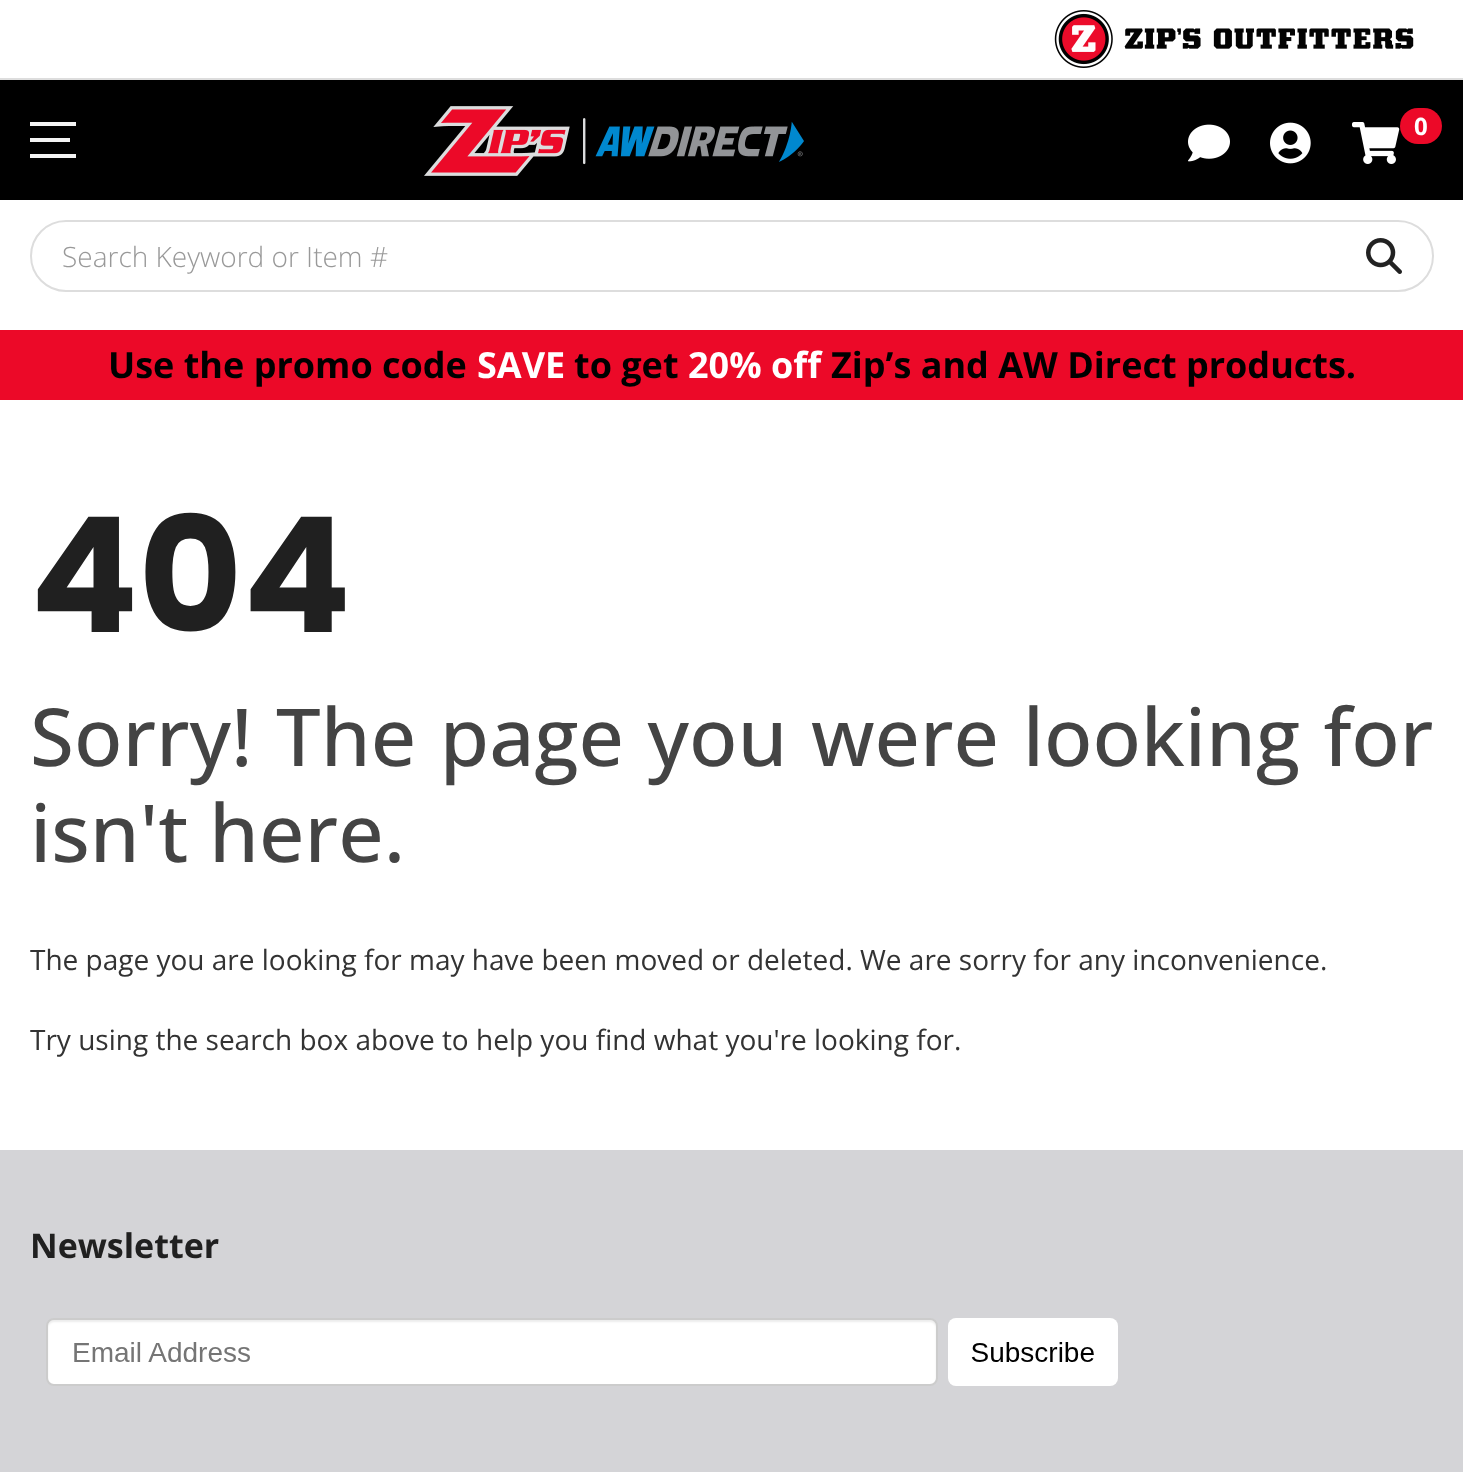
<?xml version="1.0" encoding="UTF-8"?>
<svg xmlns="http://www.w3.org/2000/svg" width="1463" height="1472">
    <rect width="100%" height="100%" fill="#FFFFFF"/>
    <rect x="0" y="78" width="1463" height="2" fill="#DDDDDD"/>
    <image x="1054" y="10" width="360" height="58" href="img_01.png"/>
    <rect x="0" y="80" width="1463" height="120" fill="#000000"/>
    <rect x="30" y="122" width="46" height="4" fill="#F4F4F4"/>
    <rect x="30" y="138" width="40" height="4" fill="#F4F4F4"/>
    <rect x="30" y="154" width="46" height="4" fill="#F4F4F4"/>
    <image x="424" y="106" width="380" height="70" href="img_02.png"/>
    <image x="1188" y="124" width="42" height="38" href="img_03.png"/>
    <image x="1270" y="122" width="41" height="42" href="img_04.png"/>
    <image x="1352" y="122" width="48" height="42" href="img_05.png"/>
    <rect x="1400" y="108" width="42" height="36" rx="18" fill="#EC0928"/>
    <text x="1414" y="135" font-family="Open Sans" font-size="24" font-weight="700" fill="#FFFFFF">0</text>
    <rect x="31" y="221" width="1402" height="70" rx="35" fill="none" stroke="#DDDDDD" stroke-width="2"/>
    <text x="62" y="267" font-family="Open Sans" font-size="28" font-weight="300" fill="#999999">Search Keyword or Item #</text>
    <image x="1366" y="238" width="36" height="36" href="img_06.png"/>
    <rect x="0" y="330" width="1463" height="70" fill="#EC0928"/>
    <text x="108" y="378" font-family="Open Sans" font-size="36" font-weight="700" fill="#000000">Use the promo code</text>
    <text x="477" y="378" font-family="Open Sans" font-size="36" font-weight="700" fill="#FFFFFF">SAVE</text>
    <text x="574" y="378" font-family="Open Sans" font-size="36" font-weight="700" fill="#000000">to get</text>
    <text x="688" y="378" font-family="Open Sans" font-size="36" font-weight="700" fill="#FFFFFF">20% off</text>
    <text x="831" y="378" font-family="Open Sans" font-size="36" font-weight="700" fill="#000000">Zip’s and AW Direct products.</text>
    <text x="30" y="632" font-family="Poppins" font-size="160" font-weight="700" fill="#202020">404</text>
    <text font-family="Open Sans" font-size="80" font-weight="500" fill="#444444">
        <tspan x="30" y="766" word-spacing="2.75">Sorry! The page you were looking for</tspan>
        <tspan x="30" y="862">isn't here.</tspan>
    </text>
    <text x="30" y="970" font-family="Open Sans" font-size="28" fill="#333333">The page you are looking for may have been moved or deleted. We are sorry for any inconvenience.</text>
    <text x="30" y="1050" font-family="Open Sans" font-size="28" fill="#333333">Try using the search box above to help you find what you're looking for.</text>
    <rect x="0" y="1150" width="1463" height="322" fill="#D4D4D7"/>
    <text x="30" y="1258" font-family="Open Sans" font-size="34" font-weight="700" fill="#202020">Newsletter</text>
    <image x="46" y="1318" width="1072" height="68" href="img_07.png"/>
</svg>
